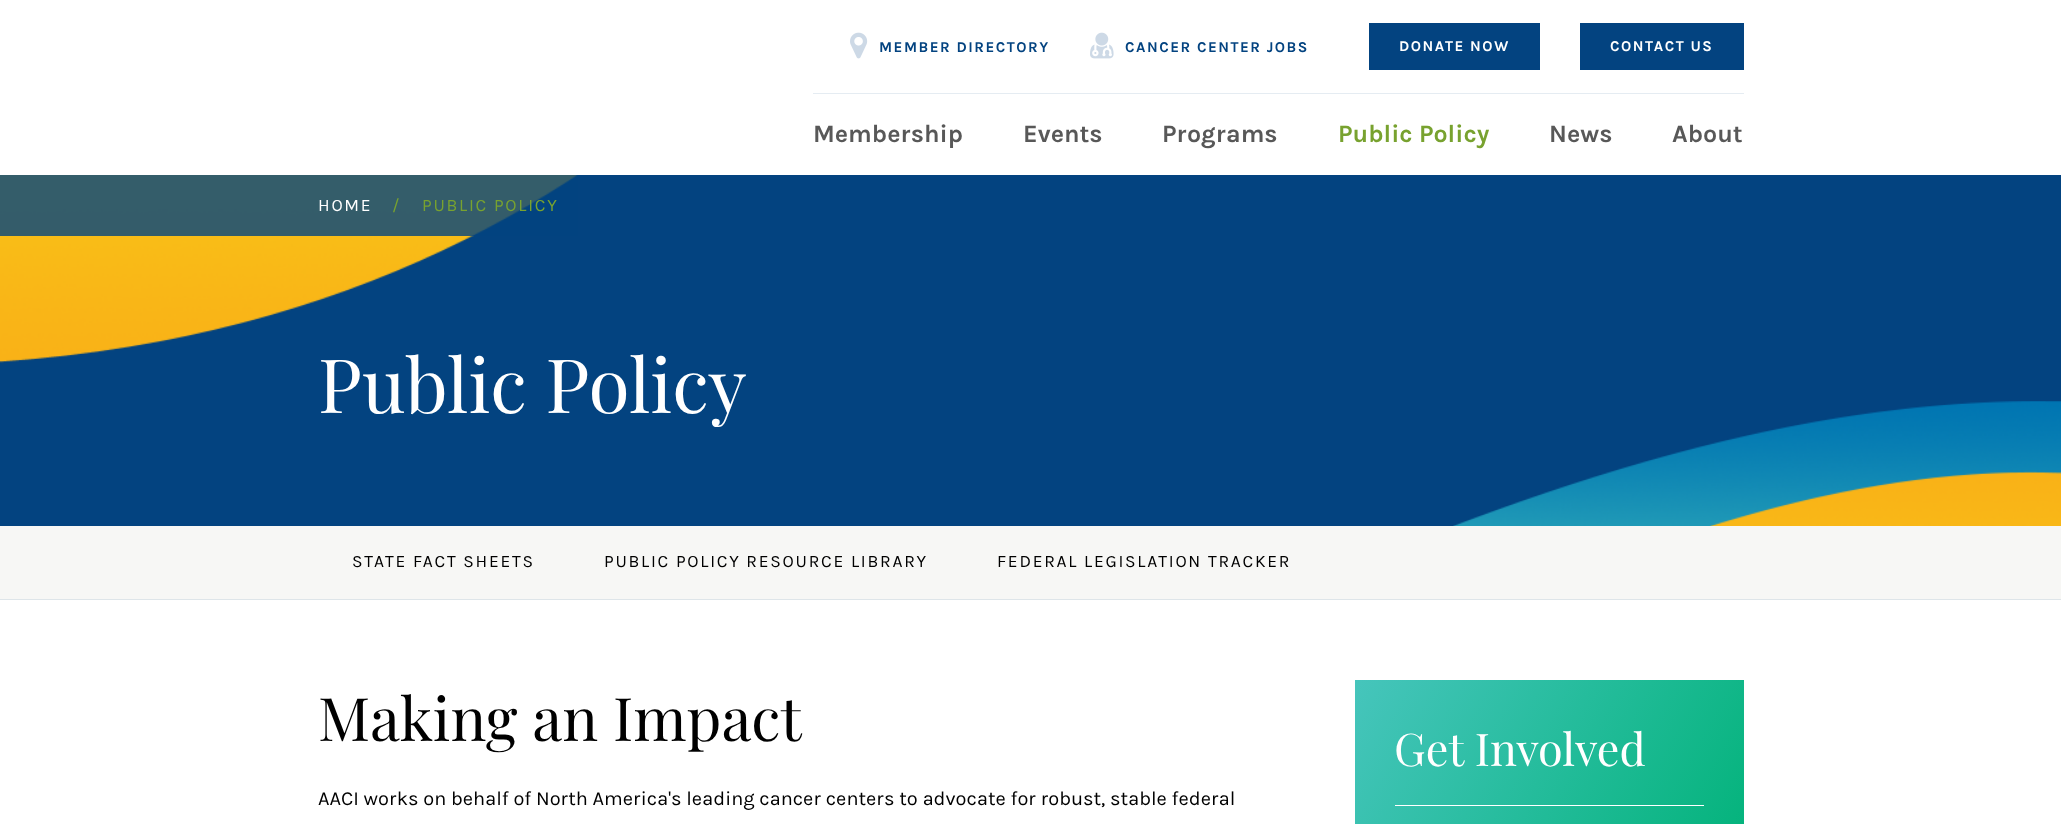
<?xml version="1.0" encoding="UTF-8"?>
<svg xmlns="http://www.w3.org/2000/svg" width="2061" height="824">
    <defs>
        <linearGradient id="g1" gradientUnits="userSpaceOnUse" x1="1358" y1="675" x2="1741" y2="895"><stop offset="0" stop-color="#46C5BC"/><stop offset="1" stop-color="#00B278"/></linearGradient>
    </defs>
    <rect width="100%" height="100%" fill="#FFFFFF"/>
    <image x="850" y="32" width="18" height="27" href="img_01.png"/>
    <text x="879" y="52" font-family="Karla" font-size="15" font-weight="700" letter-spacing="1.5" fill="#034380">MEMBER DIRECTORY</text>
    <image x="1090" y="32" width="24" height="27" href="img_02.png"/>
    <text x="1125" y="52" font-family="Karla" font-size="15" font-weight="700" letter-spacing="1.5" fill="#034380">CANCER CENTER JOBS</text>
    <rect x="1369" y="23" width="171" height="47" fill="#034380"/>
    <text x="1399" y="51" font-family="Karla" font-size="15" font-weight="700" letter-spacing="1.5" fill="#FFFFFF">DONATE NOW</text>
    <rect x="1580" y="23" width="164" height="47" fill="#034380"/>
    <text x="1610" y="51" font-family="Karla" font-size="15" font-weight="700" letter-spacing="1.5" fill="#FFFFFF">CONTACT US</text>
    <rect x="813" y="93" width="931" height="1" fill="#E5ECF2"/>
    <text x="813" y="142" font-family="Karla" font-size="25" font-weight="700" fill="#585858">Membership</text>
    <text x="1023" y="142" font-family="Karla" font-size="25" font-weight="700" fill="#585858">Events</text>
    <text x="1162" y="142" font-family="Karla" font-size="25" font-weight="700" fill="#585858">Programs</text>
    <text x="1338" y="142" font-family="Karla" font-size="25" font-weight="700" fill="#78A22F">Public Policy</text>
    <text x="1549" y="142" font-family="Karla" font-size="25" font-weight="700" fill="#585858">News</text>
    <text x="1672" y="142" font-family="Karla" font-size="25" font-weight="700" fill="#585858">About</text>
    <rect x="0" y="175" width="2061" height="351" fill="#034380"/>
    <image x="0" y="175" width="578" height="188" href="img_03.png"/>
    <rect x="0" y="175" width="578" height="61" fill="#034380" fill-opacity="0.8"/>
    <text x="318" y="211" font-family="Karla" font-size="17.4" letter-spacing="1.75" fill="#FFFFFF">HOME</text>
    <text x="392" y="211" font-family="Karla" font-size="17.4" letter-spacing="1.75" fill="#78A22F">/</text>
    <text x="422" y="211" font-family="Karla" font-size="17.4" letter-spacing="1.75" fill="#78A22F">PUBLIC POLICY</text>
    <text x="318" y="413" font-family="Playfair Display" font-size="75" fill="#FFFFFF">Public Policy</text>
    <image x="1453" y="401" width="608" height="125" href="img_04.png"/>
    <rect x="0" y="526" width="2061" height="73" fill="#F7F7F5"/>
    <rect x="0" y="599" width="2061" height="1" fill="#DEE5E9"/>
    <text x="352" y="567" font-family="Karla" font-size="17.4" letter-spacing="1.75" fill="#000000">STATE FACT SHEETS</text>
    <text x="604" y="567" font-family="Karla" font-size="17.4" letter-spacing="1.75" fill="#000000">PUBLIC POLICY RESOURCE LIBRARY</text>
    <text x="997" y="567" font-family="Karla" font-size="17.4" letter-spacing="1.75" fill="#000000">FEDERAL LEGISLATION TRACKER</text>
    <text x="318" y="741" font-family="Playfair Display" font-size="60" fill="#000000">Making an Impact</text>
    <text x="318" y="805" font-family="Karla" font-size="20" fill="#000000">AACI works on behalf of North America's leading cancer centers to advocate for robust, stable federal</text>
    <rect x="1355" y="680" width="389" height="144" fill="url(#g1)"/>
    <text x="1394" y="766" font-family="Playfair Display" font-size="45" fill="#FFFFFF">Get Involved</text>
    <rect x="1395" y="805" width="309" height="1" fill="#FFFFFF"/>
</svg>
